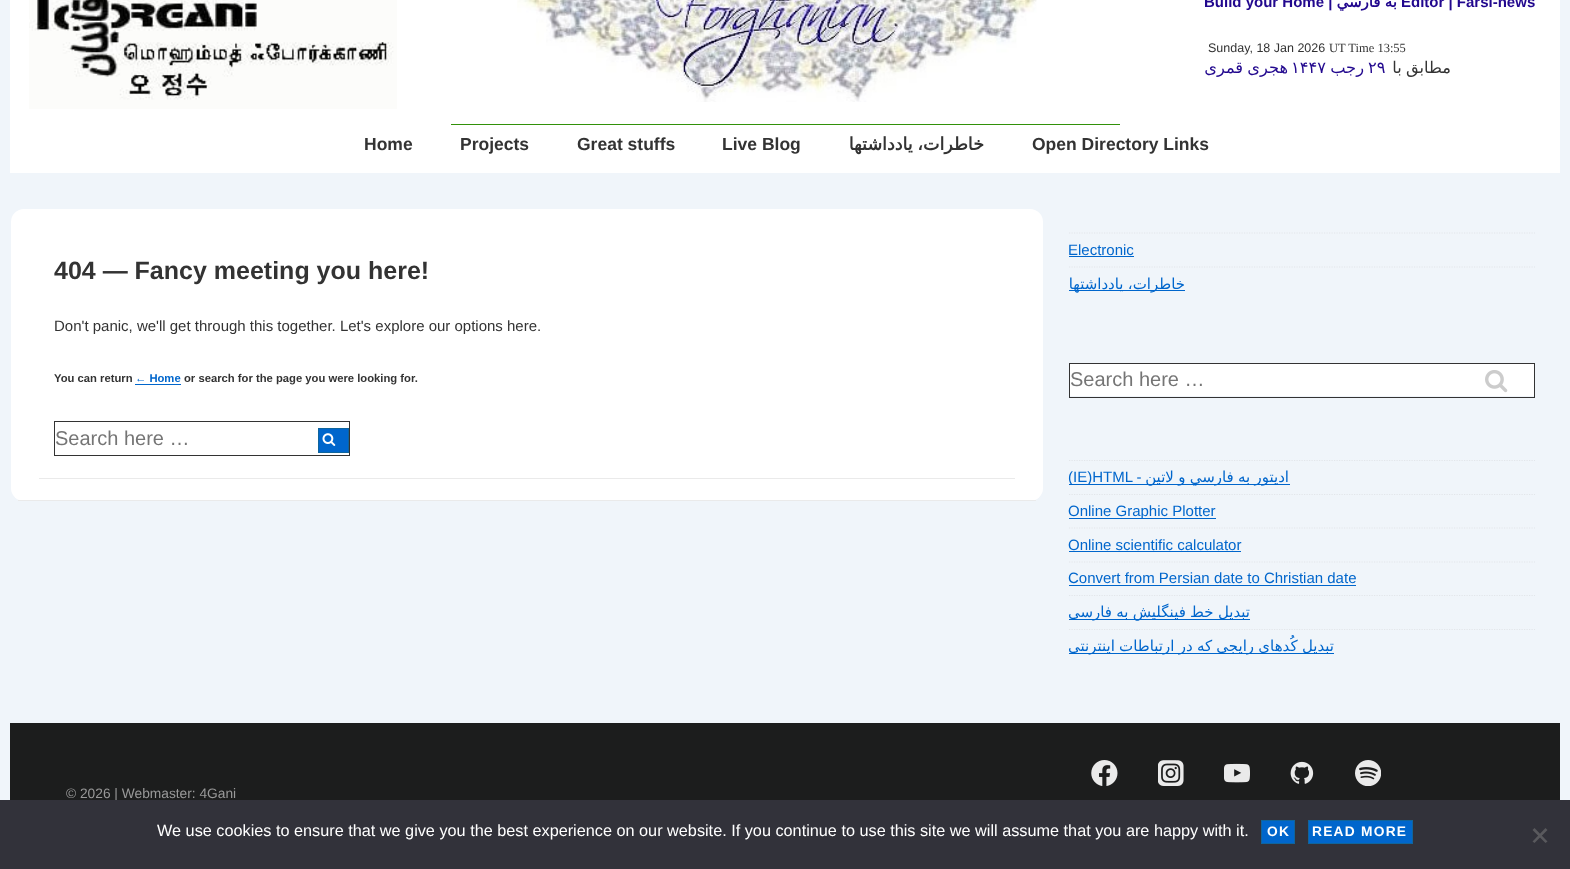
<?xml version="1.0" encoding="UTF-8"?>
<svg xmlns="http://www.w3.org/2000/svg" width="1570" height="869">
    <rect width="100%" height="100%" fill="#F0F5FA"/>
    <rect x="10" y="0" width="1550" height="173" fill="#FFFFFF"/>
    <image x="29" y="0" width="368" height="109" href="img_01.png"/>
    <rect x="451" y="124" width="669" height="1" fill="#329109"/>
    <image x="517" y="0" width="520" height="102" href="img_02.png"/>
    <text x="1204" y="7" font-family="Liberation Sans" font-size="15" font-weight="700" fill="#22088E">Build your Home |</text>
    <text x="1397" y="7" word-spacing="-0.5" font-family="DejaVu Sans" font-size="15" font-weight="700" direction="rtl" fill="#22088E">به فارسي</text>
    <text x="1401" y="7" font-family="Liberation Sans" font-size="15" font-weight="700" fill="#22088E">Editor | Farsi-news</text>
    <text x="1208" y="52" font-family="Liberation Sans" font-size="12.5" fill="#333333">Sunday, 18 Jan 2026</text>
    <text x="1329" y="52" font-family="Liberation Serif" font-size="12.5" fill="#333333">UT Time 13:55</text>
    <text x="1288" y="73" word-spacing="-1" font-family="DejaVu Sans" font-size="16.25" direction="rtl" fill="#22088E">هجرى قمرى</text>
    <text x="1291" y="73" font-family="DejaVu Sans" font-size="16.25" fill="#22088E">۱۴۴۷</text>
    <text x="1364" y="73" font-family="DejaVu Sans" font-size="16.25" direction="rtl" fill="#22088E">رجب</text>
    <text x="1368" y="73" font-family="DejaVu Sans" font-size="16.25" fill="#22088E">۲۹</text>
    <text x="1451" y="73" word-spacing="-1" font-family="DejaVu Sans" font-size="16.25" direction="rtl" fill="#333333">مطابق با</text>
    <text x="364" y="150" font-family="Liberation Sans" font-size="17.5" font-weight="700" fill="#333333">Home</text>
    <text x="460" y="150" font-family="Liberation Sans" font-size="17.5" font-weight="700" fill="#333333">Projects</text>
    <text x="577" y="150" font-family="Liberation Sans" font-size="17.5" font-weight="700" fill="#333333">Great stuffs</text>
    <text x="722" y="150" font-family="Liberation Sans" font-size="17.5" font-weight="700" fill="#333333">Live Blog</text>
    <text x="984" y="150" word-spacing="-1" font-family="DejaVu Sans" font-size="17.5" font-weight="700" direction="rtl" fill="#333333">خاطرات، یادداشتها</text>
    <text x="1032" y="150" font-family="Liberation Sans" font-size="17.5" font-weight="700" fill="#333333">Open Directory Links</text>
    <rect x="11" y="209" width="1032" height="292" rx="13" fill="#FFFFFF"/>
    <rect x="18" y="500" width="1018" height="1" fill="#EAEAEA"/>
    <rect x="39" y="478" width="976" height="1" fill="#EAEAEA"/>
    <text x="54" y="279" font-family="Liberation Sans" font-size="25" font-weight="700" fill="#333333">404 — Fancy meeting you here!</text>
    <text x="54" y="331" font-family="Liberation Sans" font-size="15" fill="#333333">Don't panic, we'll get through this together. Let's explore our options here.</text>
    <text x="54" y="382" font-family="Liberation Sans" font-size="11.25" font-weight="700" fill="#333333">You can return</text>
    <text x="135" y="382" font-family="Liberation Sans" font-size="11.25" font-weight="700" fill="#0066CC">← Home</text>
    <rect x="135" y="384" width="46" height="1" fill="#0066CC"/>
    <text x="184" y="382" font-family="Liberation Sans" font-size="11.25" font-weight="700" fill="#333333">or search for the page you were looking for.</text>
    <rect x="54.5" y="421.5" width="295" height="34" fill="none" stroke="#333333"/>
    <text x="55" y="445" font-family="Liberation Sans" font-size="20" fill="#757575">Search here …</text>
    <rect x="318.5" y="428.5" width="30" height="24" fill="#0066CC" stroke="#10659C"/>
    <image x="322" y="433" width="14" height="13" href="img_03.png"/>
    <path d="M 1069 233 H 1535" fill="none" stroke="#E2E6EA" stroke-width="1.2" stroke-dasharray="1.25 1.25"/>
    <text x="1068" y="255" font-family="Liberation Sans" font-size="15" fill="#0066CC">Electronic</text>
    <rect x="1069" y="256" width="65" height="1" fill="#0066CC"/>
    <path d="M 1069 267 H 1535" fill="none" stroke="#E2E6EA" stroke-width="1.2" stroke-dasharray="1.25 1.25"/>
    <rect x="1069" y="290" width="116" height="1" fill="#0066CC"/>
    <text x="1185" y="289" word-spacing="-0.5" font-family="DejaVu Sans" font-size="15" direction="rtl" fill="#0066CC">خاطرات، یادداشتها</text>
    <rect x="1069.5" y="363.5" width="465" height="34" fill="none" stroke="#333333"/>
    <rect x="1070" y="364" width="464" height="32" fill="#FFFFFF"/>
    <text x="1070" y="386" font-family="Liberation Sans" font-size="20" fill="#757575">Search here …</text>
    <image x="1485" y="370" width="23" height="23" href="img_04.png"/>
    <path d="M 1069 460.5 H 1535" fill="none" stroke="#E2E6EA" stroke-width="1.2" stroke-dasharray="1.25 1.25"/>
    <rect x="1069" y="484" width="221" height="1" fill="#0066CC"/>
    <text x="1068" y="482" font-family="Liberation Sans" font-size="15" fill="#0066CC">(IE)HTML -</text>
    <text x="1289" y="482" word-spacing="-0.5" font-family="DejaVu Sans" font-size="15" direction="rtl" fill="#0066CC">اديتور به فارسي و لاتين</text>
    <path d="M 1069 494.5 H 1535" fill="none" stroke="#E2E6EA" stroke-width="1.2" stroke-dasharray="1.25 1.25"/>
    <rect x="1069" y="518" width="147" height="1" fill="#0066CC"/>
    <text x="1068" y="516" font-family="Liberation Sans" font-size="15" fill="#0066CC">Online Graphic Plotter</text>
    <path d="M 1069 528 H 1535" fill="none" stroke="#E2E6EA" stroke-width="1.2" stroke-dasharray="1.25 1.25"/>
    <text x="1068" y="550" font-family="Liberation Sans" font-size="15" fill="#0066CC">Online scientific calculator</text>
    <rect x="1069" y="551" width="172" height="1" fill="#0066CC"/>
    <path d="M 1069 562 H 1535" fill="none" stroke="#E2E6EA" stroke-width="1.2" stroke-dasharray="1.25 1.25"/>
    <text x="1068" y="583" font-family="Liberation Sans" font-size="15" fill="#0066CC">Convert from Persian date to Christian date</text>
    <rect x="1069" y="585" width="287" height="1" fill="#0066CC"/>
    <path d="M 1069 595.5 H 1535" fill="none" stroke="#E2E6EA" stroke-width="1.2" stroke-dasharray="1.25 1.25"/>
    <rect x="1069" y="619" width="181" height="1" fill="#0066CC"/>
    <text x="1250" y="617" word-spacing="-0.5" font-family="DejaVu Sans" font-size="15" direction="rtl" fill="#0066CC">تبديل خط فينگليش به فارسى</text>
    <path d="M 1069 629.5 H 1535" fill="none" stroke="#E2E6EA" stroke-width="1.2" stroke-dasharray="1.25 1.25"/>
    <rect x="1069" y="653" width="265" height="1" fill="#0066CC"/>
    <text x="1334" y="651" word-spacing="-0.5" font-family="DejaVu Sans" font-size="15" direction="rtl" fill="#0066CC">تبديل کُدهای رايجی که در ارتباطات اينترنتی</text>
    <rect x="10" y="723" width="1550" height="77" fill="#1C1D1D"/>
    <image x="1091" y="760" width="27" height="26" href="img_05.png"/>
    <image x="1158" y="760" width="26" height="26" href="img_06.png"/>
    <image x="1224" y="763" width="26" height="20" href="img_07.png"/>
    <image x="1290" y="761" width="24" height="23" href="img_08.png"/>
    <image x="1355" y="760" width="26" height="26" href="img_09.png"/>
    <text x="66" y="798" font-family="Liberation Sans" font-size="13.75" fill="#999999">© 2026 | Webmaster: 4Gani</text>
    <rect x="0" y="800" width="1570" height="69" fill="#32323A"/>
    <text x="157" y="836" font-family="Liberation Sans" font-size="16.25" fill="#FFFFFF">We use cookies to ensure that we give you the best experience on our website. If you continue to use this site we will assume that you are happy with it.</text>
    <rect x="1261.5" y="820.5" width="33" height="23" fill="#0066CC" stroke="#10659C"/>
    <text x="1267" y="836" font-family="Liberation Sans" font-size="13.75" font-weight="700" letter-spacing="1.25" fill="#FFFFFF">OK</text>
    <rect x="1308.5" y="820.5" width="104" height="23" fill="#0066CC" stroke="#10659C"/>
    <text x="1312" y="836" font-family="Liberation Sans" font-size="13.75" font-weight="700" letter-spacing="1.25" fill="#FFFFFF">READ MORE</text>
    <path d="M 1545.5 828 L 1547.5 830 L 1534.5 843 L 1532.5 841.5 Z" fill="#59595D"/>
    <path d="M 1532.5 830 L 1534.5 828 L 1547.5 841.5 L 1545.5 843 Z" fill="#59595D"/>
</svg>
